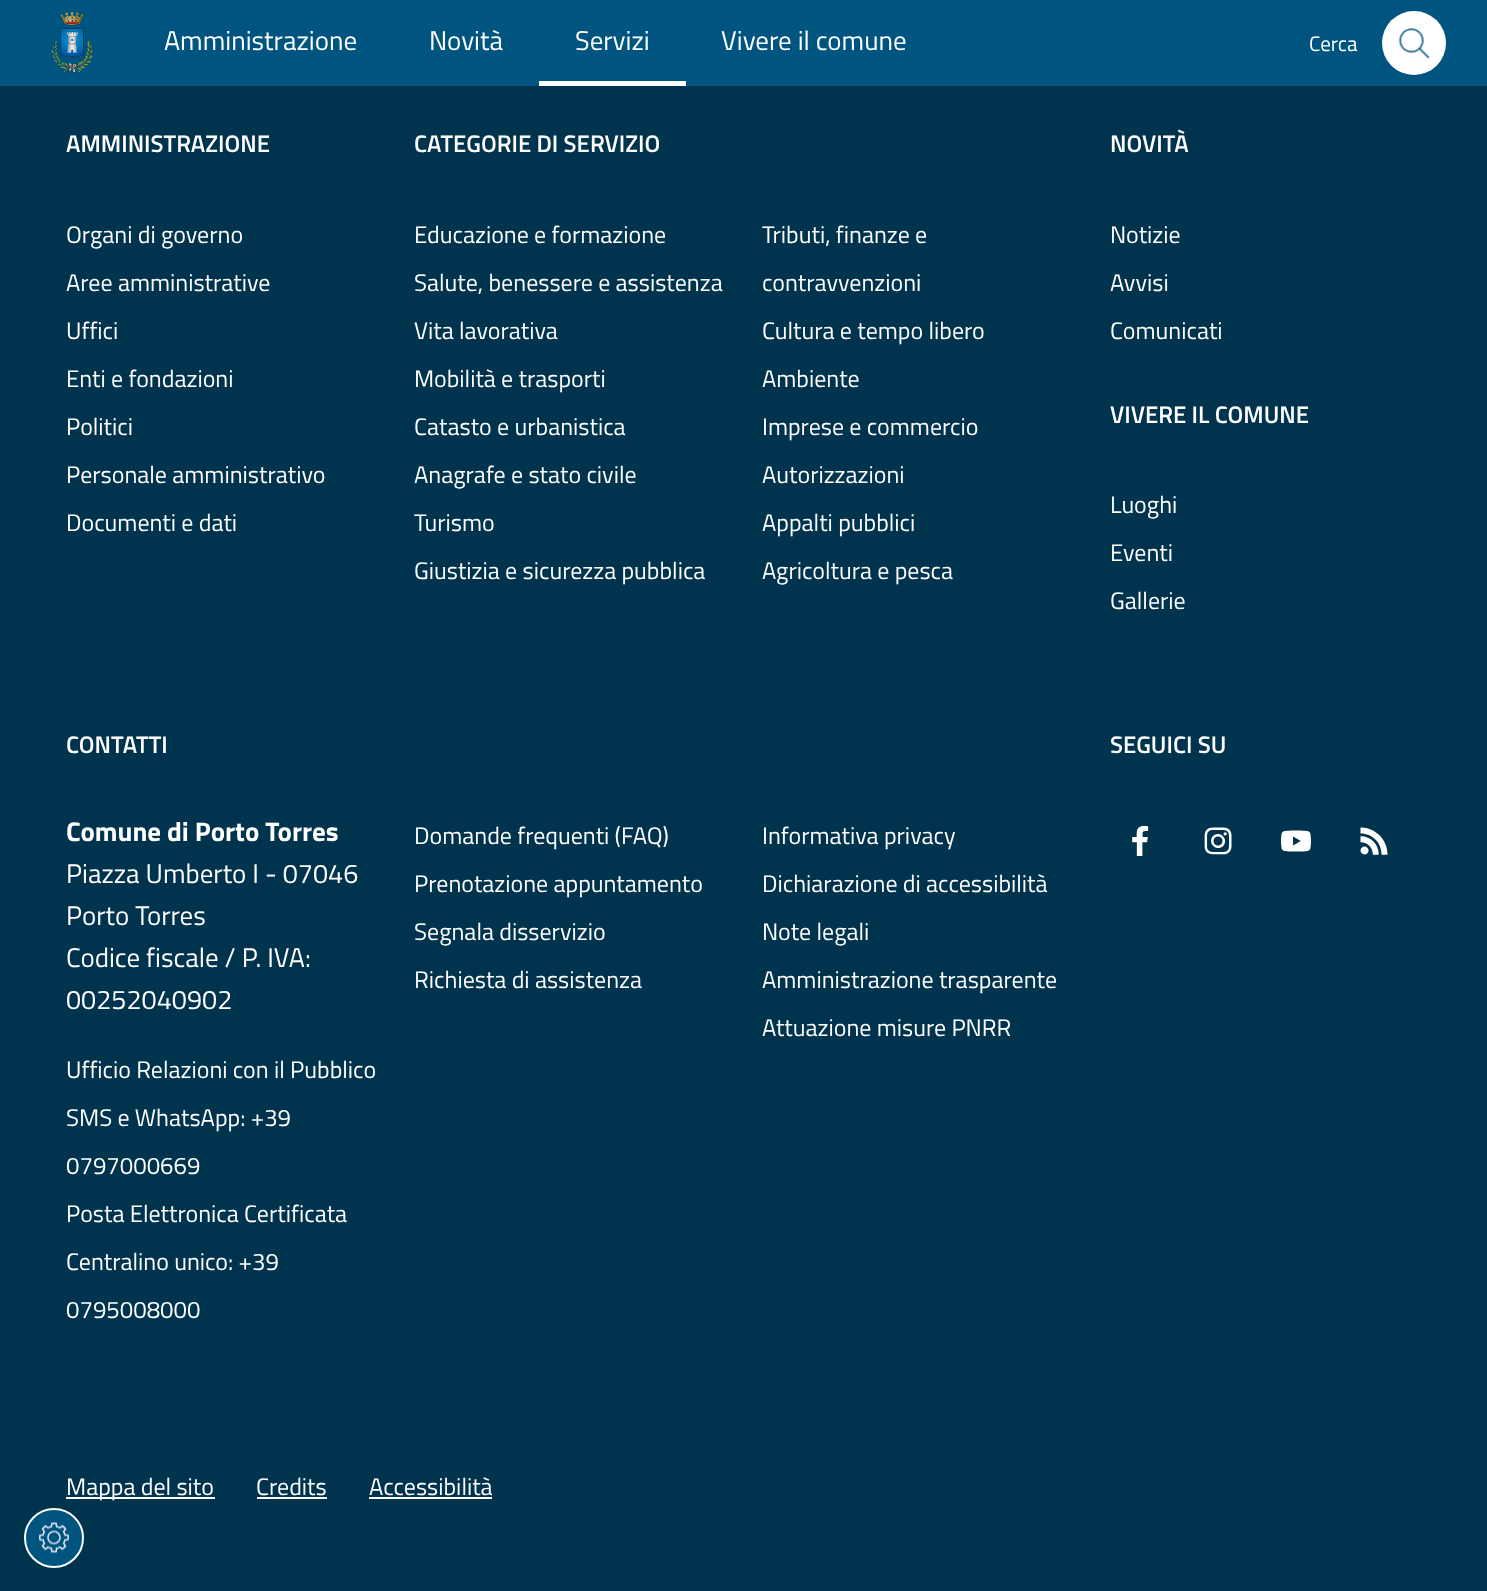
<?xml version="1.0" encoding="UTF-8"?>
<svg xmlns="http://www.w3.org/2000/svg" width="1487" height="1591">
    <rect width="100%" height="100%" fill="#00334D"/>
    <rect x="0" y="0" width="1487" height="86" fill="#005580"/>
    <image x="51" y="12" width="42" height="62" href="img_01.png"/>
    <text x="164" y="50" font-family="Titillium Web" font-size="27" fill="#FFFFFF">Amministrazione</text>
    <text x="429" y="50" font-family="Titillium Web" font-size="27" fill="#FFFFFF">Novità</text>
    <rect x="539" y="81" width="147" height="5" fill="#FFFFFF"/>
    <text x="575" y="50" font-family="Titillium Web" font-size="27" fill="#FFFFFF">Servizi</text>
    <text x="721" y="50" font-family="Titillium Web" font-size="27" fill="#FFFFFF">Vivere il comune</text>
    <text x="1309" y="51" font-family="Titillium Web" font-size="21" fill="#FFFFFF">Cerca</text>
    <circle cx="1414" cy="43" r="32" fill="#FFFFFF"/>
    <image x="1399" y="28" width="31" height="31" href="img_02.png"/>
    <text x="66" y="152" font-family="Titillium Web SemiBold" font-size="24" font-weight="600" fill="#FFFFFF">AMMINISTRAZIONE</text>
    <text x="66" y="243" font-family="Titillium Web" font-size="24" fill="#FFFFFF">Organi di governo</text>
    <text x="66" y="291" font-family="Titillium Web" font-size="24" fill="#FFFFFF">Aree amministrative</text>
    <text x="66" y="339" font-family="Titillium Web" font-size="24" fill="#FFFFFF">Uffici</text>
    <text x="66" y="387" font-family="Titillium Web" font-size="24" fill="#FFFFFF">Enti e fondazioni</text>
    <text x="66" y="435" font-family="Titillium Web" font-size="24" fill="#FFFFFF">Politici</text>
    <text x="66" y="483" font-family="Titillium Web" font-size="24" fill="#FFFFFF">Personale amministrativo</text>
    <text x="66" y="531" font-family="Titillium Web" font-size="24" fill="#FFFFFF">Documenti e dati</text>
    <text x="414" y="152" font-family="Titillium Web SemiBold" font-size="24" font-weight="600" fill="#FFFFFF">CATEGORIE DI SERVIZIO</text>
    <text x="414" y="243" font-family="Titillium Web" font-size="24" fill="#FFFFFF">Educazione e formazione</text>
    <text x="414" y="291" font-family="Titillium Web" font-size="24" fill="#FFFFFF">Salute, benessere e assistenza</text>
    <text x="414" y="339" font-family="Titillium Web" font-size="24" fill="#FFFFFF">Vita lavorativa</text>
    <text x="414" y="387" font-family="Titillium Web" font-size="24" fill="#FFFFFF">Mobilità e trasporti</text>
    <text x="414" y="435" font-family="Titillium Web" font-size="24" fill="#FFFFFF">Catasto e urbanistica</text>
    <text x="414" y="483" font-family="Titillium Web" font-size="24" fill="#FFFFFF">Anagrafe e stato civile</text>
    <text x="414" y="531" font-family="Titillium Web" font-size="24" fill="#FFFFFF">Turismo</text>
    <text x="414" y="579" font-family="Titillium Web" font-size="24" fill="#FFFFFF">Giustizia e sicurezza pubblica</text>
    <text x="762" y="243" font-family="Titillium Web" font-size="24" fill="#FFFFFF">Tributi, finanze e</text>
    <text x="762" y="291" font-family="Titillium Web" font-size="24" fill="#FFFFFF">contravvenzioni</text>
    <text x="762" y="339" font-family="Titillium Web" font-size="24" fill="#FFFFFF">Cultura e tempo libero</text>
    <text x="762" y="387" font-family="Titillium Web" font-size="24" fill="#FFFFFF">Ambiente</text>
    <text x="762" y="435" font-family="Titillium Web" font-size="24" fill="#FFFFFF">Imprese e commercio</text>
    <text x="762" y="483" font-family="Titillium Web" font-size="24" fill="#FFFFFF">Autorizzazioni</text>
    <text x="762" y="531" font-family="Titillium Web" font-size="24" fill="#FFFFFF">Appalti pubblici</text>
    <text x="762" y="579" font-family="Titillium Web" font-size="24" fill="#FFFFFF">Agricoltura e pesca</text>
    <text x="1110" y="152" font-family="Titillium Web SemiBold" font-size="24" font-weight="600" fill="#FFFFFF">NOVITÀ</text>
    <text x="1110" y="243" font-family="Titillium Web" font-size="24" fill="#FFFFFF">Notizie</text>
    <text x="1110" y="291" font-family="Titillium Web" font-size="24" fill="#FFFFFF">Avvisi</text>
    <text x="1110" y="339" font-family="Titillium Web" font-size="24" fill="#FFFFFF">Comunicati</text>
    <text x="1110" y="423" font-family="Titillium Web SemiBold" font-size="24" font-weight="600" fill="#FFFFFF">VIVERE IL COMUNE</text>
    <text x="1110" y="513" font-family="Titillium Web" font-size="24" fill="#FFFFFF">Luoghi</text>
    <text x="1110" y="561" font-family="Titillium Web" font-size="24" fill="#FFFFFF">Eventi</text>
    <text x="1110" y="609" font-family="Titillium Web" font-size="24" fill="#FFFFFF">Gallerie</text>
    <text x="66" y="753" font-family="Titillium Web SemiBold" font-size="24" font-weight="600" fill="#FFFFFF">CONTATTI</text>
    <text x="66" y="841" font-family="Titillium Web" font-size="27" font-weight="700" fill="#FFFFFF">Comune di Porto Torres</text>
    <text font-family="Titillium Web" font-size="27" fill="#FFFFFF">
        <tspan x="66" y="883">Piazza Umberto I - 07046</tspan>
        <tspan x="66" y="925">Porto Torres</tspan>
        <tspan x="66" y="967">Codice fiscale / P. IVA:</tspan>
        <tspan x="66" y="1009">00252040902</tspan>
    </text>
    <text x="66" y="1078" font-family="Titillium Web" font-size="24" fill="#FFFFFF">Ufficio Relazioni con il Pubblico</text>
    <text x="66" y="1126" font-family="Titillium Web" font-size="24" fill="#FFFFFF">SMS e WhatsApp: +39</text>
    <text x="66" y="1174" font-family="Titillium Web" font-size="24" fill="#FFFFFF">0797000669</text>
    <text x="66" y="1222" font-family="Titillium Web" font-size="24" fill="#FFFFFF">Posta Elettronica Certificata</text>
    <text x="66" y="1270" font-family="Titillium Web" font-size="24" fill="#FFFFFF">Centralino unico: +39</text>
    <text x="66" y="1318" font-family="Titillium Web" font-size="24" fill="#FFFFFF">0795008000</text>
    <text x="414" y="844" font-family="Titillium Web" font-size="24" fill="#FFFFFF">Domande frequenti (FAQ)</text>
    <text x="414" y="892" font-family="Titillium Web" font-size="24" fill="#FFFFFF">Prenotazione appuntamento</text>
    <text x="414" y="940" font-family="Titillium Web" font-size="24" fill="#FFFFFF">Segnala disservizio</text>
    <text x="414" y="988" font-family="Titillium Web" font-size="24" fill="#FFFFFF">Richiesta di assistenza</text>
    <text x="762" y="844" font-family="Titillium Web" font-size="24" fill="#FFFFFF">Informativa privacy</text>
    <text x="762" y="892" font-family="Titillium Web" font-size="24" fill="#FFFFFF">Dichiarazione di accessibilità</text>
    <text x="762" y="940" font-family="Titillium Web" font-size="24" fill="#FFFFFF">Note legali</text>
    <text x="762" y="988" font-family="Titillium Web" font-size="24" fill="#FFFFFF">Amministrazione trasparente</text>
    <text x="762" y="1036" font-family="Titillium Web" font-size="24" fill="#FFFFFF">Attuazione misure PNRR</text>
    <text x="1110" y="753" font-family="Titillium Web SemiBold" font-size="24" font-weight="600" fill="#FFFFFF">SEGUICI SU</text>
    <image x="1132" y="826" width="17" height="30" href="img_03.png"/>
    <image x="1204" y="827" width="28" height="28" href="img_04.png"/>
    <image x="1281" y="830" width="30" height="22" href="img_05.png"/>
    <image x="1360" y="827" width="28" height="28" href="img_06.png"/>
    <rect x="66" y="1497" width="149" height="2" fill="#FFFFFF"/>
    <text x="66" y="1495" font-family="Titillium Web" font-size="24" fill="#FFFFFF">Mappa del sito</text>
    <text x="256" y="1495" font-family="Titillium Web" font-size="24" fill="#FFFFFF">Credits</text>
    <rect x="257" y="1497" width="70" height="2" fill="#FFFFFF"/>
    <text x="369" y="1495" font-family="Titillium Web" font-size="24" fill="#FFFFFF">Accessibilità</text>
    <rect x="369" y="1497" width="123" height="2" fill="#FFFFFF"/>
    <circle cx="54" cy="1538" r="29" fill="#005580" stroke="#FFFFFF" stroke-width="2"/>
    <image x="39" y="1522" width="30" height="31" href="img_07.png"/>
</svg>
